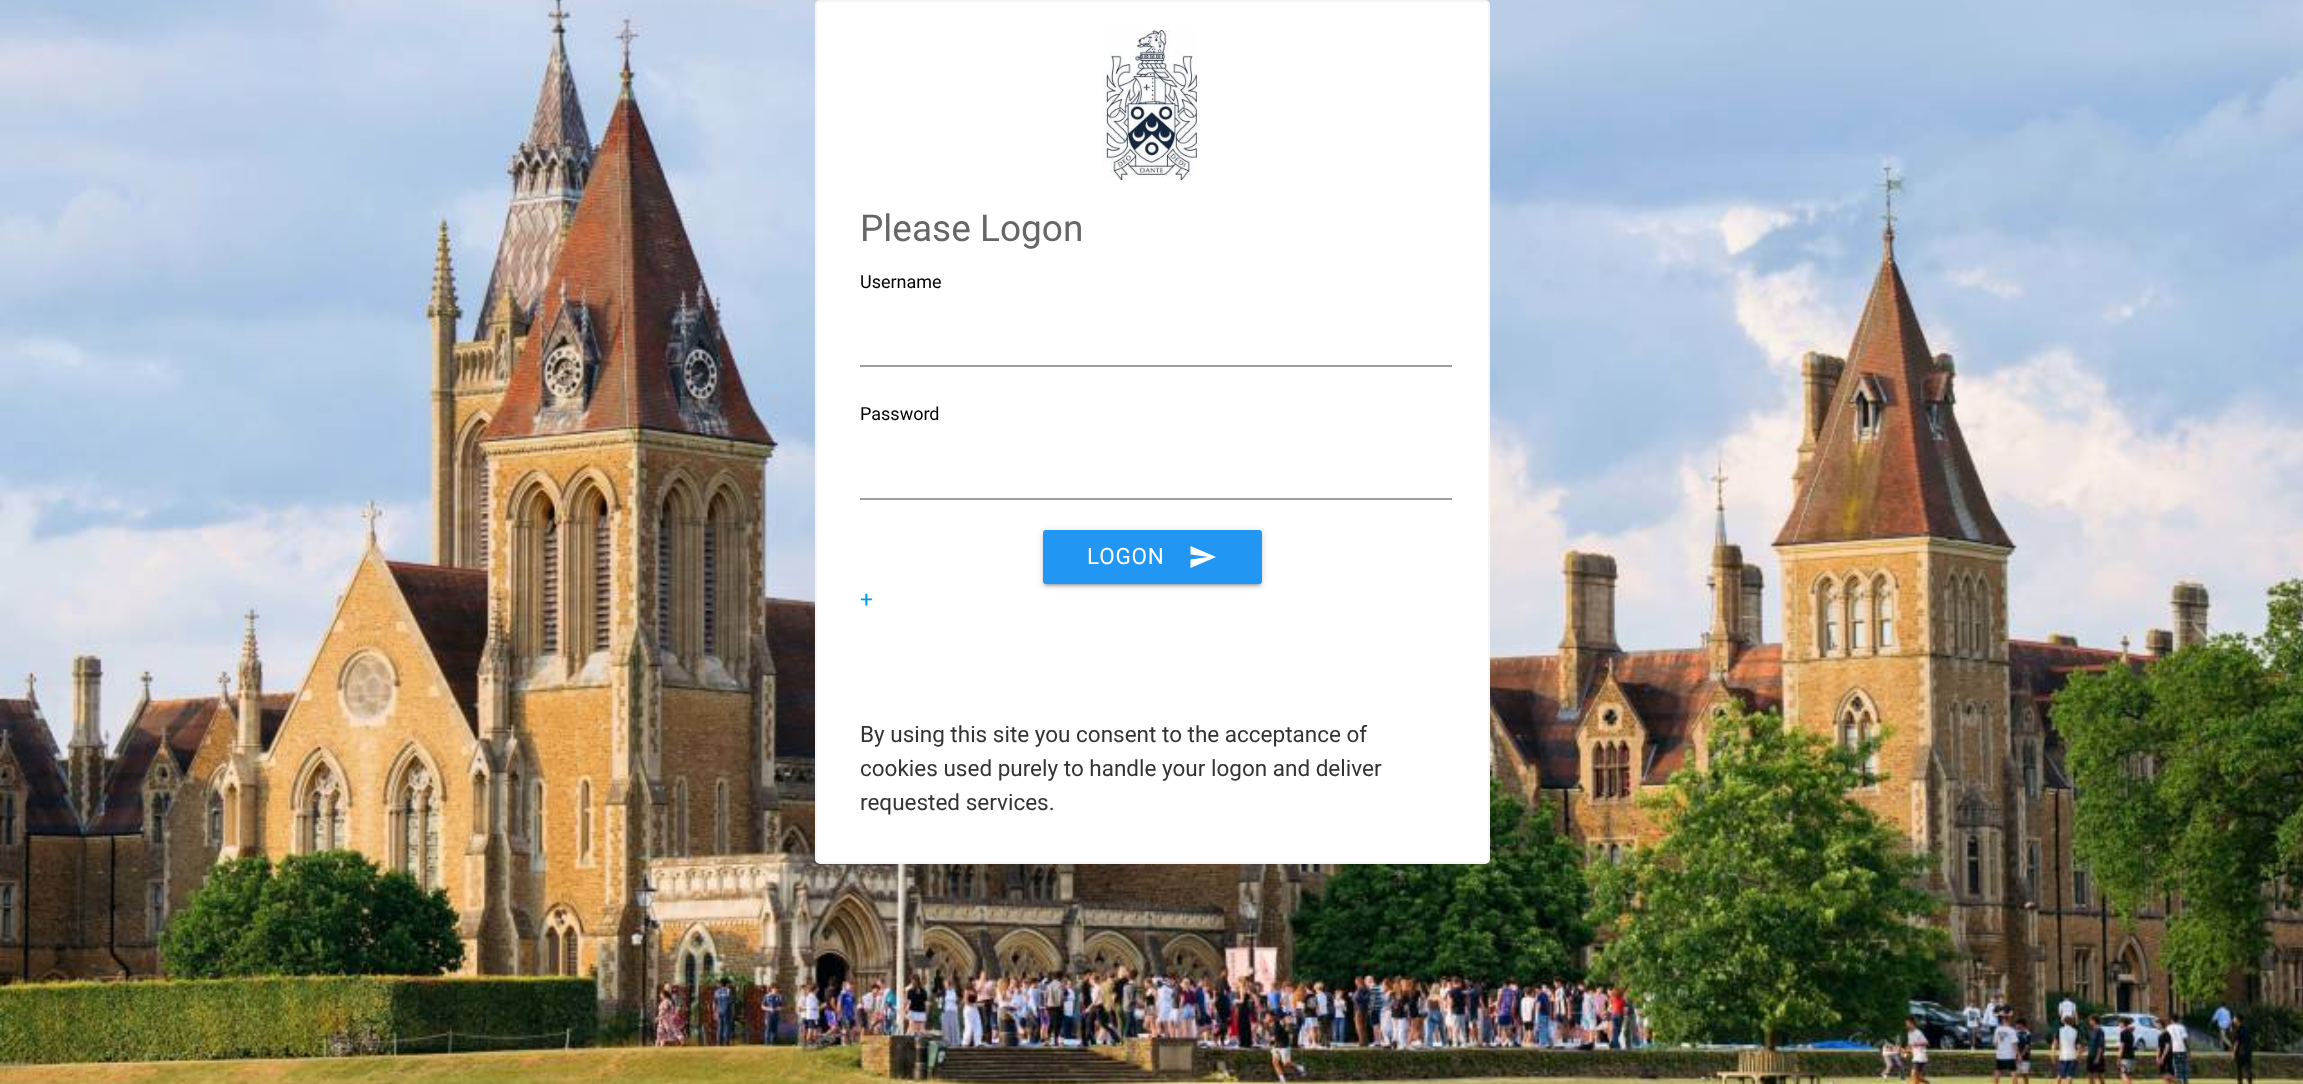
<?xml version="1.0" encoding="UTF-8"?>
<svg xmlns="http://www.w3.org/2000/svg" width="2303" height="1084">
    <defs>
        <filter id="blur1" x="-50%" y="-200%" width="200%" height="500%"><feGaussianBlur stdDeviation="1"/></filter>
        <filter id="blur2" x="-50%" y="-200%" width="200%" height="500%"><feGaussianBlur stdDeviation="4"/></filter>
        <filter id="blur3" x="-50%" y="-200%" width="200%" height="500%"><feGaussianBlur stdDeviation="1.5"/></filter>
    </defs>
    <rect width="100%" height="100%" fill="#FFFFFF"/>
    <image x="0" y="0" width="2303" height="1084" href="img_01.png"/>
    <rect x="816" y="1" width="673" height="862" rx="4" fill="#FFFFFF" stroke="#F5F5F5" stroke-width="2"/>
    <image x="1103" y="30" width="94" height="150" href="img_02.png"/>
    <text x="860" y="241" font-family="Roboto" font-size="37" fill="#666666">Please Logon</text>
    <text x="860" y="288" font-family="Roboto" font-size="18" fill="#000000">Username</text>
    <rect x="860" y="365" width="592" height="2" fill="#9E9E9E"/>
    <text x="860" y="420" font-family="Roboto" font-size="18" fill="#000000">Password</text>
    <rect x="860" y="498" width="592" height="2" fill="#9E9E9E"/>
    <rect x="1046" y="537" width="213" height="48" fill="#000000" fill-opacity="0.2" filter="url(#blur1)"/>
    <rect x="1043" y="531" width="219" height="54" rx="3" fill="#000000" fill-opacity="0.12" filter="url(#blur2)"/>
    <rect x="1043" y="533" width="219" height="54" rx="3" fill="#000000" fill-opacity="0.14" filter="url(#blur3)"/>
    <rect x="1043" y="530" width="219" height="54" rx="3" fill="#2196F3"/>
    <text x="1087" y="564" font-family="Roboto" font-size="22.5" letter-spacing="0.75" fill="#FFFFFF">LOGON</text>
    <path d="M 1190.5 568 V 559.5 L 1208.5 557 L 1190.5 554.5 V 546 L 1216 557 Z" fill="#FFFFFF"/>
    <text x="860" y="607" font-family="Roboto" font-size="22.5" fill="#039BE5">+</text>
    <text font-family="Roboto" font-size="22.5" fill="#333333">
        <tspan x="860" y="742">By using this site you consent to the acceptance of</tspan>
        <tspan x="860" y="776">cookies used purely to handle your logon and deliver</tspan>
        <tspan x="860" y="810">requested services.</tspan>
    </text>
</svg>
